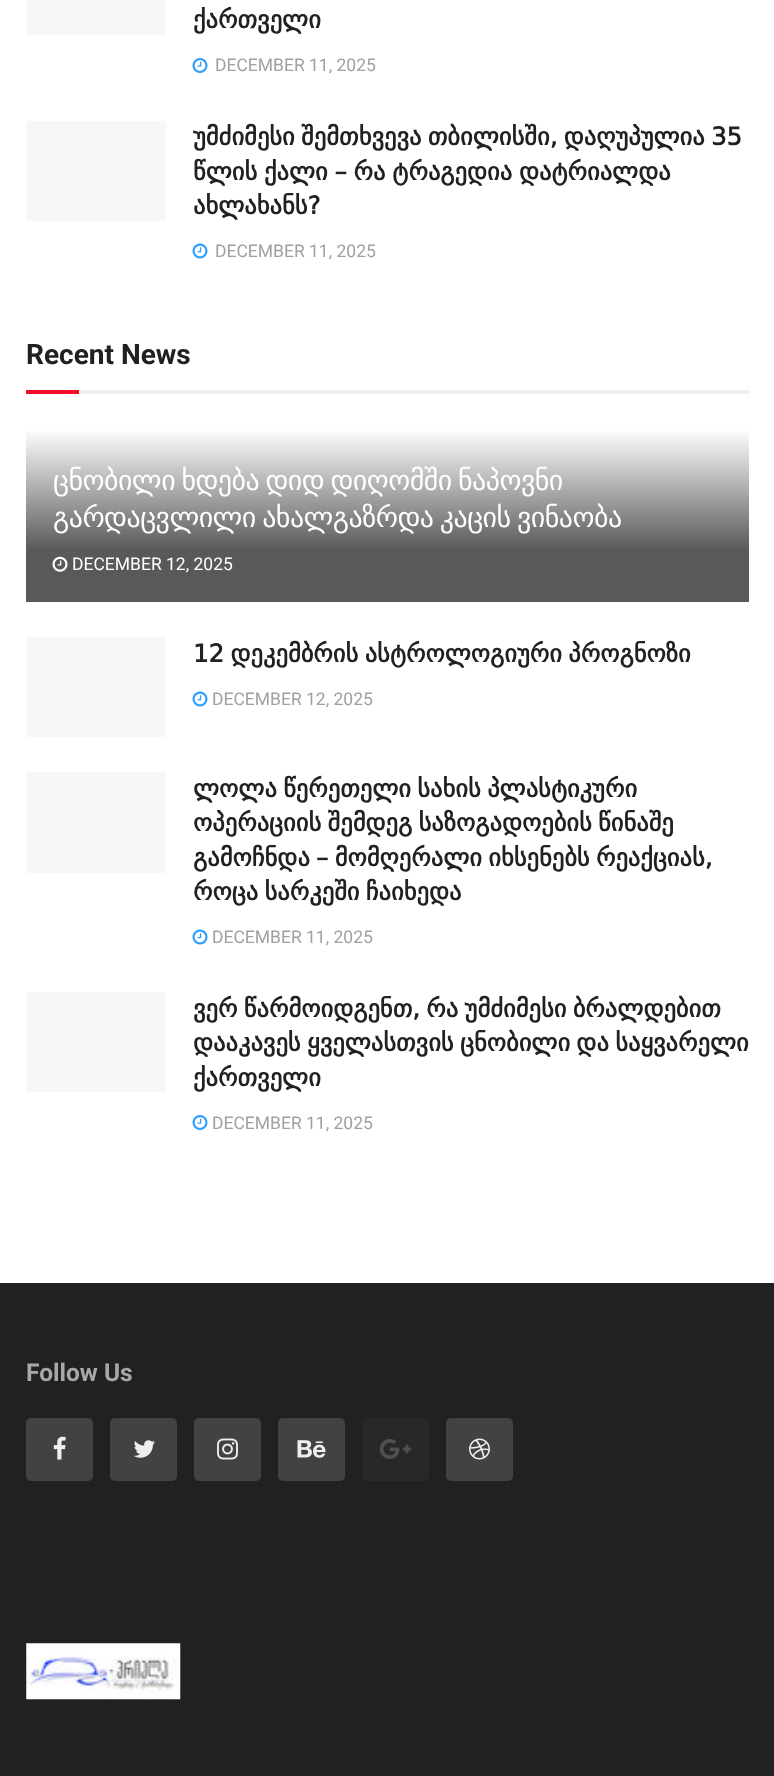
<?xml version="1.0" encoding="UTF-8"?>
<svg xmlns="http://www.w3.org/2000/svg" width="774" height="1776">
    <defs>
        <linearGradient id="g1" gradientUnits="userSpaceOnUse" x1="388" y1="429" x2="388" y2="602"><stop offset="0" stop-color="#FFFFFF"/><stop offset="0.7" stop-color="#595959"/></linearGradient>
    </defs>
    <rect width="100%" height="100%" fill="#FFFFFF"/>
    <rect x="26" y="0" width="140" height="35" fill="#F7F7F7"/>
    <text x="193" y="28" font-family="DejaVu Sans" font-size="24.5" font-weight="700" fill="#212121">ქართველი</text>
    <image x="192" y="58" width="16" height="15" href="img_01.png"/>
    <text x="215" y="71" font-family="Roboto" font-size="17.5" fill="#A0A0A0">DECEMBER 11, 2025</text>
    <rect x="26" y="121" width="140" height="100" fill="#F7F7F7"/>
    <text font-family="DejaVu Sans" font-size="24.5" font-weight="700" fill="#212121">
        <tspan x="193" y="145" word-spacing="-1.5">უმძიმესი შემთხვევა თბილისში, დაღუპულია 35</tspan>
        <tspan x="193" y="180" word-spacing="-1">წლის ქალი – რა ტრაგედია დატრიალდა</tspan>
        <tspan x="193" y="214">ახლახანს?</tspan>
    </text>
    <image x="192" y="243" width="16" height="16" href="img_02.png"/>
    <text x="215" y="257" font-family="Roboto" font-size="17.5" fill="#A0A0A0">DECEMBER 11, 2025</text>
    <rect x="79" y="390" width="670" height="4" fill="#EEEEEE"/>
    <text x="26" y="364" font-family="Roboto" font-size="28" font-weight="700" fill="#212121">Recent News</text>
    <rect x="26" y="390" width="53" height="4" fill="#F70D28"/>
    <rect x="26" y="431" width="723" height="171" fill="url(#g1)"/>
    <text font-family="DejaVu Sans" font-size="28" letter-spacing="-0.55" fill="#FFFFFF">
        <tspan x="53" y="490" word-spacing="-2">ცნობილი ხდება დიდ დიღომში ნაპოვნი</tspan>
        <tspan x="53" y="527" word-spacing="-2">გარდაცვლილი ახალგაზრდა კაცის ვინაობა</tspan>
    </text>
    <image x="52" y="556" width="16" height="16" href="img_03.png"/>
    <text x="72" y="570" font-family="Roboto" font-size="17.5" fill="#FFFFFF">DECEMBER 12, 2025</text>
    <rect x="26" y="637" width="140" height="100" fill="#F7F7F7"/>
    <text x="193" y="662" word-spacing="-1.5" font-family="DejaVu Sans" font-size="24.5" font-weight="700" fill="#212121">12 დეკემბრის ასტროლოგიური პროგნოზი</text>
    <image x="192" y="691" width="16" height="16" href="img_02.png"/>
    <text x="212" y="705" font-family="Roboto" font-size="17.5" fill="#A0A0A0">DECEMBER 12, 2025</text>
    <rect x="26" y="772" width="140" height="101" fill="#F7F7F7"/>
    <text font-family="DejaVu Sans" font-size="24.5" font-weight="700" fill="#212121">
        <tspan x="193" y="797" word-spacing="-1.5">ლოლა წერეთელი სახის პლასტიკური</tspan>
        <tspan x="193" y="831" word-spacing="-1.5">ოპერაციის შემდეგ საზოგადოების წინაშე</tspan>
        <tspan x="193" y="866" word-spacing="-1.5">გამოჩნდა – მომღერალი იხსენებს რეაქციას,</tspan>
        <tspan x="193" y="900" word-spacing="-1.5">როცა სარკეში ჩაიხედა</tspan>
    </text>
    <image x="192" y="929" width="16" height="16" href="img_02.png"/>
    <text x="212" y="943" font-family="Roboto" font-size="17.5" fill="#A0A0A0">DECEMBER 11, 2025</text>
    <rect x="26" y="992" width="140" height="100" fill="#F7F7F7"/>
    <text font-family="DejaVu Sans" font-size="24.5" font-weight="700" fill="#212121">
        <tspan x="193" y="1017" word-spacing="-1.5">ვერ წარმოიდგენთ, რა უმძიმესი ბრალდებით</tspan>
        <tspan x="193" y="1051" word-spacing="-1.5">დააკავეს ყველასთვის ცნობილი და საყვარელი</tspan>
        <tspan x="193" y="1086">ქართველი</tspan>
    </text>
    <image x="192" y="1115" width="16" height="15" href="img_01.png"/>
    <text x="212" y="1129" font-family="Roboto" font-size="17.5" fill="#A0A0A0">DECEMBER 11, 2025</text>
    <rect x="0" y="1283" width="774" height="493" fill="#212121"/>
    <text x="26" y="1381" font-family="Roboto" font-size="24.5" font-weight="700" fill="#A8A8AA">Follow Us</text>
    <rect x="26" y="1418" width="67" height="63" rx="5" fill="#424242"/>
    <image x="53" y="1436" width="13" height="24" href="img_04.png"/>
    <rect x="110" y="1418" width="67" height="63" rx="5" fill="#424242"/>
    <image x="133" y="1440" width="22" height="18" href="img_05.png"/>
    <rect x="194" y="1418" width="67" height="63" rx="5" fill="#424242"/>
    <image x="217" y="1438" width="21" height="22" href="img_06.png"/>
    <rect x="278" y="1418" width="67" height="63" rx="5" fill="#424242"/>
    <image x="297" y="1440" width="29" height="18" href="img_07.png"/>
    <rect x="362" y="1418" width="67" height="63" rx="5" fill="#282828"/>
    <image x="379" y="1439" width="33" height="20" href="img_08.png"/>
    <rect x="446" y="1418" width="67" height="63" rx="5" fill="#424242"/>
    <image x="469" y="1438" width="21" height="22" href="img_09.png"/>
    <image x="26" y="1643" width="155" height="57" href="img_10.png"/>
</svg>
